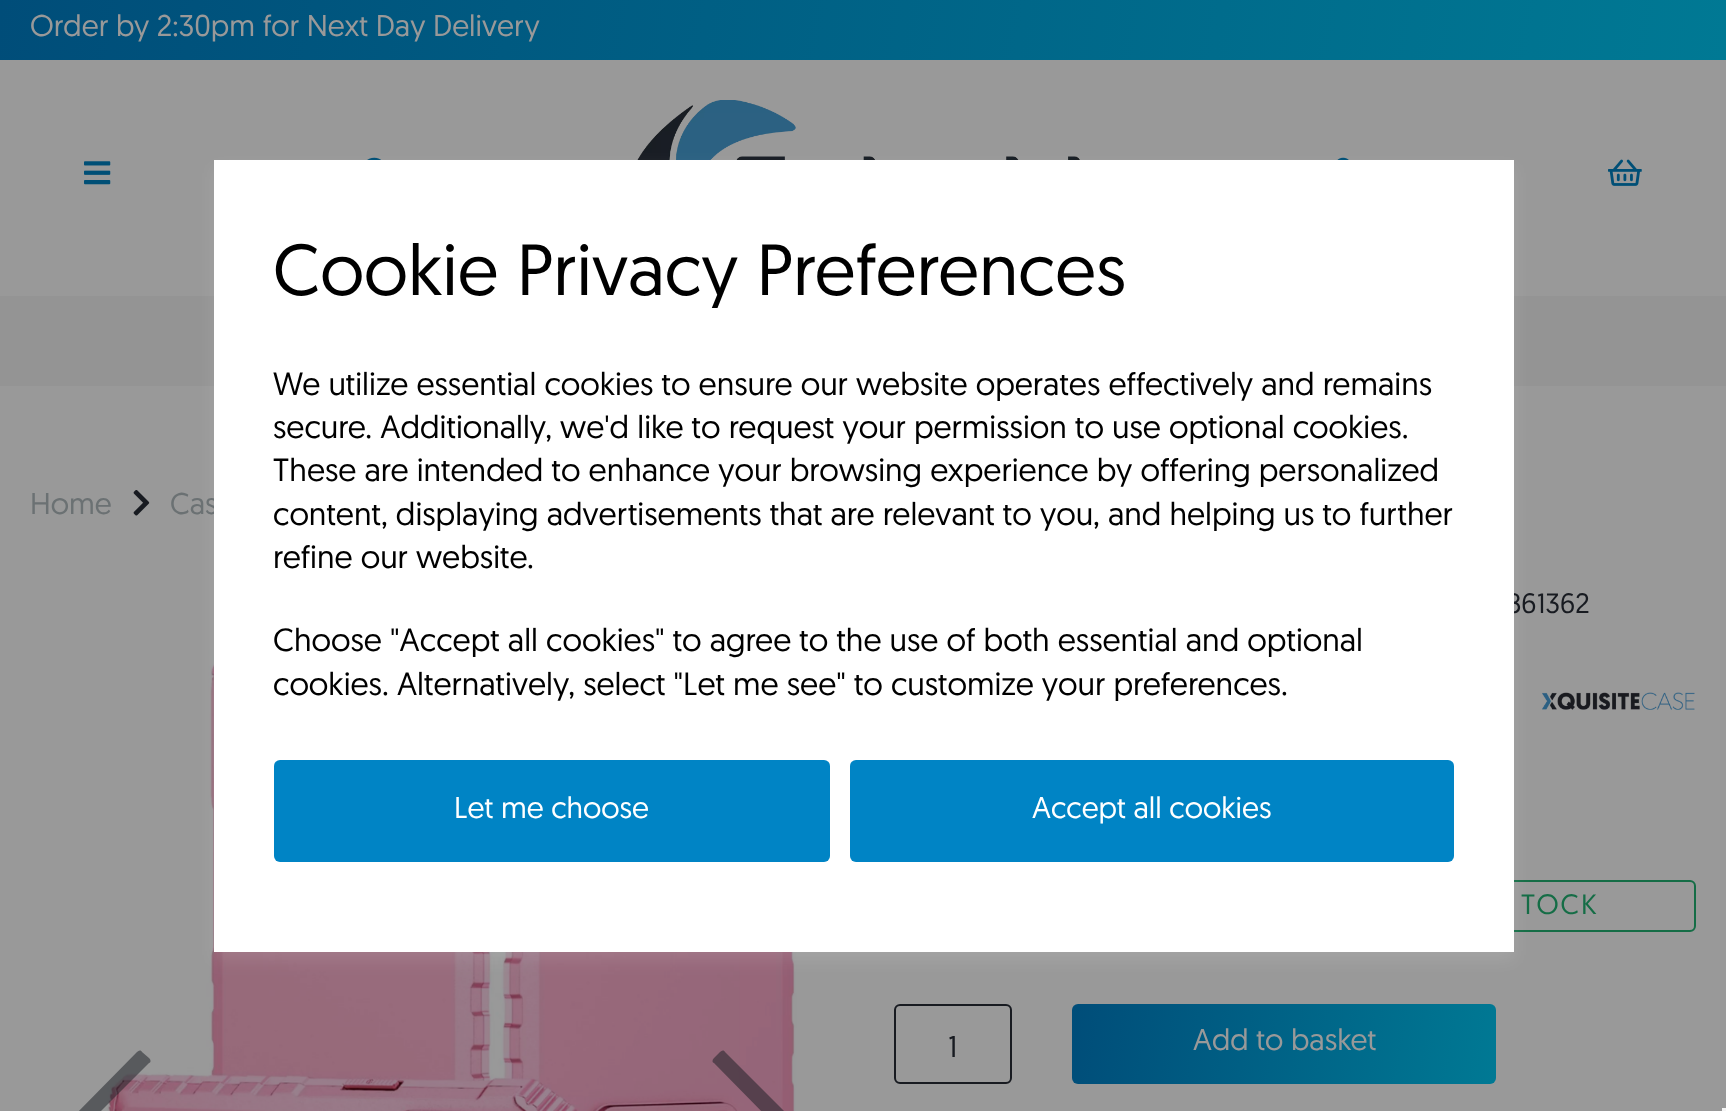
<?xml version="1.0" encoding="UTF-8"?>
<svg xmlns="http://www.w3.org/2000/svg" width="1726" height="1111">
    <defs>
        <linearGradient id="g1" gradientUnits="userSpaceOnUse" x1="1705" y1="178" x2="21" y2="-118"><stop offset="0" stop-color="#007994"/><stop offset="1" stop-color="#004D79"/></linearGradient>
        <filter id="blur1" x="-50%" y="-200%" width="200%" height="500%"><feGaussianBlur stdDeviation="8"/></filter>
        <linearGradient id="g2" gradientUnits="userSpaceOnUse" x1="1496" y1="1081" x2="1072" y2="1007"><stop offset="0" stop-color="#007994"/><stop offset="1" stop-color="#004D79"/></linearGradient>
    </defs>
    <rect width="100%" height="100%" fill="#999999"/>
    <rect x="0" y="0" width="1726" height="60" fill="url(#g1)"/>
    <text x="30" y="36" font-family="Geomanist" font-size="30" fill="#999999">Order by 2:30pm for Next Day Delivery</text>
    <image x="367" y="157" width="14" height="3" href="img_01.png"/>
    <image x="637" y="100" width="443" height="60" href="img_02.png"/>
    <image x="1337" y="157" width="12" height="3" href="img_03.png"/>
    <image x="84" y="161" width="27" height="24" href="img_04.png"/>
    <image x="1608" y="159" width="34" height="27" href="img_05.png"/>
    <rect x="0" y="296" width="1726" height="90" fill="#949494"/>
    <image x="107" y="619" width="690" height="492" href="img_07.png"/>
    <rect x="1325" y="881" width="370" height="50" rx="5" fill="none" stroke="#156D46" stroke-width="2"/>
    <rect x="214" y="168" width="1300" height="792" fill="#FFFFFF" fill-opacity="0.1" filter="url(#blur1)"/>
    <text x="170" y="514" font-family="Geomanist" font-size="30" fill="#6B7173">Cas</text>
    <text x="1506" y="613" font-family="Geomanist" font-size="28" fill="#181B21">861362</text>
    <rect x="214" y="160" width="1300" height="792" fill="#FFFFFF"/>
    <text x="273" y="295" font-family="Geomanist" font-size="72" fill="#000000">Cookie Privacy Preferences</text>
    <text font-family="Geomanist" font-size="32" fill="#000000">
        <tspan x="273" y="395">We utilize essential cookies to ensure our website operates effectively and remains</tspan>
        <tspan x="273" y="438">secure. Additionally, we'd like to request your permission to use optional cookies.</tspan>
        <tspan x="273" y="481">These are intended to enhance your browsing experience by offering personalized</tspan>
        <tspan x="273" y="525">content, displaying advertisements that are relevant to you, and helping us to further</tspan>
        <tspan x="273" y="568">refine our website.</tspan>
    </text>
    <text font-family="Geomanist" font-size="32" fill="#000000">
        <tspan x="273" y="651">Choose "Accept all cookies" to agree to the use of both essential and optional</tspan>
        <tspan x="273" y="695">cookies. Alternatively, select "Let me see" to customize your preferences.</tspan>
    </text>
    <rect x="274" y="760" width="556" height="102" rx="6" fill="#0084C5"/>
    <text x="454" y="818" font-family="Geomanist" font-size="30" fill="#FFFFFF">Let me choose</text>
    <rect x="850" y="760" width="604" height="102" rx="6" fill="#0084C5"/>
    <text x="1032" y="818" font-family="Geomanist" font-size="30" fill="#FFFFFF">Accept all cookies</text>
    <text x="30" y="514" font-family="Geomanist" font-size="30" fill="#6B7173">Home</text>
    <image x="133" y="490" width="17" height="26" href="img_06.png"/>
    <path d="M 142 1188 C 141 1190 139 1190 137 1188 L 72 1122 C 70 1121 70 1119 72 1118 L 137 1052 C 139 1050 141 1050 142 1052 L 149 1058 C 151 1060 151 1062 149 1063 L 92 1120 L 149 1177 C 151 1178 151 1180 149 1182 Z" fill="#181B21" fill-opacity="0.5"/>
    <path d="M 720 1052 C 722 1050 724 1050 725 1052 L 791 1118 C 793 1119 793 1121 791 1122 L 725 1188 C 724 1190 722 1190 720 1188 L 714 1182 C 712 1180 712 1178 714 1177 L 770 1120 L 714 1063 C 712 1062 712 1060 714 1058 Z" fill="#181B21" fill-opacity="0.5"/>
    <image x="1542" y="692" width="153" height="18" href="img_08.png"/>
    <text x="1521" y="914" font-family="Geomanist" font-size="28" letter-spacing="2" fill="#156D46">TOCK</text>
    <rect x="895" y="1005" width="116" height="78" rx="5" fill="none" stroke="#181B21" stroke-width="2"/>
    <text x="948" y="1057" font-family="Geomanist" font-size="30" fill="#181B21">1</text>
    <rect x="1072" y="1004" width="424" height="80" rx="6" fill="url(#g2)"/>
    <text x="1193" y="1050" font-family="Geomanist" font-size="30" fill="#999999">Add to basket</text>
    <rect x="1722" y="1108" width="4" height="3" fill="#F5F5F5"/>
</svg>
